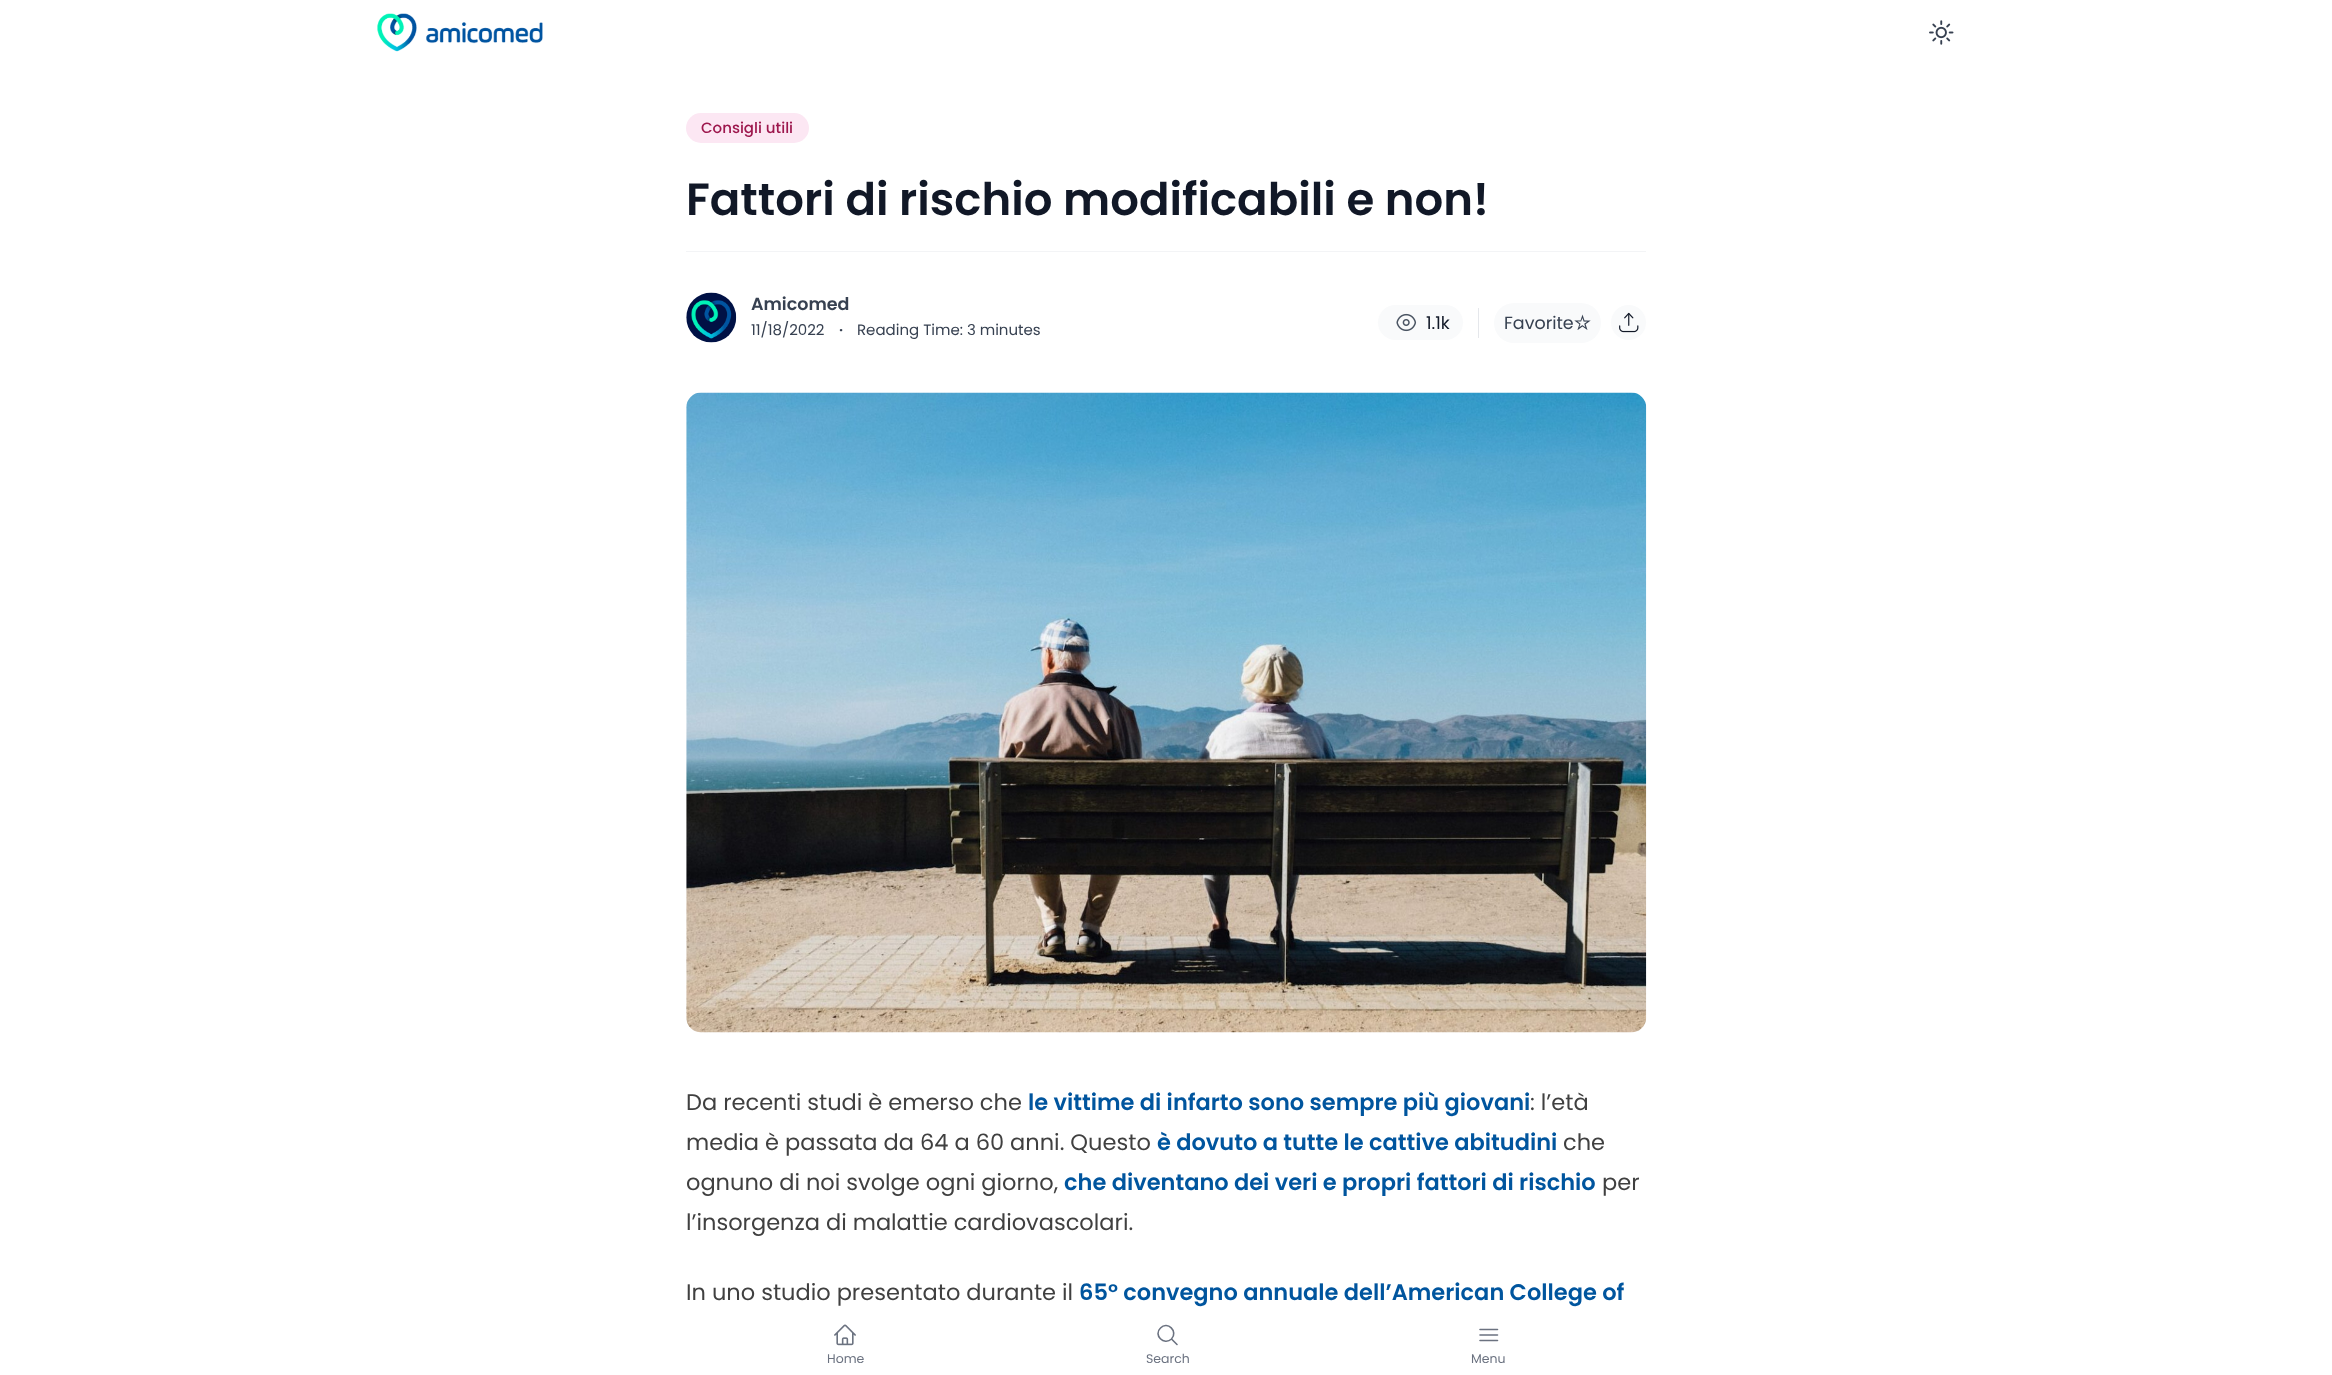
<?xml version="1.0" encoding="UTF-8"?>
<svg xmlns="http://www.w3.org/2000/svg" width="2332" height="1375">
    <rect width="100%" height="100%" fill="#FFFFFF"/>
    <image x="377" y="13" width="166" height="39" href="img_01.png"/>
    <image x="1929" y="20" width="25" height="25" href="img_02.png"/>
    <rect x="686" y="113" width="123" height="30" rx="15" fill="#FCE7F3"/>
    <text x="701" y="133" font-family="Poppins" font-size="15" font-weight="500" fill="#9D174D">Consigli utili</text>
    <text x="686" y="215" font-family="Poppins" font-size="45" font-weight="600" fill="#111827">Fattori di rischio modificabili e non!</text>
    <rect x="686" y="251" width="960" height="1" fill="#F3F4F6"/>
    <image x="686" y="292" width="51" height="51" href="img_03.png"/>
    <text x="751" y="310" font-family="Poppins" font-size="17.5" font-weight="600" fill="#374151">Amicomed</text>
    <text x="751" y="335" font-family="Poppins" font-size="15" fill="#374151">11/18/2022</text>
    <text x="839" y="335" font-family="Poppins" font-size="15" font-weight="600" fill="#374151">·</text>
    <text x="857" y="335" font-family="Poppins" font-size="15" fill="#374151">Reading Time: 3 minutes</text>
    <rect x="1378" y="305" width="85" height="35" rx="17.5" fill="#F9FAFB"/>
    <image x="1396" y="313" width="21" height="19" href="img_04.png"/>
    <text x="1426" y="329" font-family="Poppins" font-size="17.5" fill="#111827">1.1k</text>
    <rect x="1478" y="308" width="1" height="30" fill="#E5E7EB"/>
    <rect x="1494" y="303" width="107" height="40" rx="20" fill="#F9FAFB"/>
    <text x="1504" y="329" font-family="Poppins" font-size="17.5" fill="#374151">Favorite</text>
    <image x="1574" y="314" width="17" height="16" href="img_05.png"/>
    <circle cx="1628.5" cy="322.5" r="17.5" fill="#F9FAFB"/>
    <image x="1619" y="312" width="20" height="21" href="img_06.png"/>
    <image x="686" y="392" width="961" height="641" href="img_07.png"/>
    <text x="686" y="1110" font-family="Poppins" font-size="22.5" fill="#404040">Da recenti studi è emerso che</text>
    <text x="1028" y="1110" font-family="Poppins" font-size="22.5" font-weight="600" fill="#00559E">le vittime di infarto sono sempre più giovani</text>
    <text x="1530" y="1110" font-family="Poppins" font-size="22.5" fill="#404040">: l’età</text>
    <text x="686" y="1150" font-family="Poppins" font-size="22.5" fill="#404040">media è passata da 64 a 60 anni. Questo</text>
    <text x="1157" y="1150" font-family="Poppins" font-size="22.5" font-weight="600" fill="#00559E">è dovuto a tutte le cattive abitudini</text>
    <text x="1563" y="1150" font-family="Poppins" font-size="22.5" fill="#404040">che</text>
    <text x="686" y="1190" font-family="Poppins" font-size="22.5" fill="#404040">ognuno di noi svolge ogni giorno,</text>
    <text x="1064" y="1190" font-family="Poppins" font-size="22.5" font-weight="600" fill="#00559E">che diventano dei veri e propri fattori di rischio</text>
    <text x="1602" y="1190" font-family="Poppins" font-size="22.5" fill="#404040">per</text>
    <text x="686" y="1230" font-family="Poppins" font-size="22.5" fill="#404040">l’insorgenza di malattie cardiovascolari.</text>
    <text x="686" y="1300" font-family="Poppins" font-size="22.5" fill="#404040">In uno studio presentato durante il</text>
    <text x="1079" y="1300" font-family="Poppins" font-size="22.5" font-weight="600" fill="#00559E">65° convegno annuale dell’American College of</text>
    <image x="834" y="1324" width="22" height="22" href="img_08.png"/>
    <text x="827" y="1363" font-family="Poppins" font-size="12.5" fill="#6B7280">Home</text>
    <path d="M 1177 1344.5 L 1171.5 1339 M 1171.5 1339 C 1178.5 1331.5 1167.5 1320.5 1160.5 1328 C 1153 1335 1164 1346 1171.5 1339 Z" fill="none" stroke="#6B7280" stroke-width="1.6" stroke-linecap="round" stroke-linejoin="round"/>
    <text x="1146" y="1363" font-family="Poppins" font-size="12.5" fill="#6B7280">Search</text>
    <path d="M 1480 1329.5 H 1497.5 M 1480 1335 H 1497.5 M 1480 1340.5 H 1497.5" fill="none" stroke="#6B7280" stroke-width="1.6" stroke-linecap="round" stroke-linejoin="round"/>
    <text x="1471" y="1363" font-family="Poppins" font-size="12.5" fill="#6B7280">Menu</text>
</svg>
